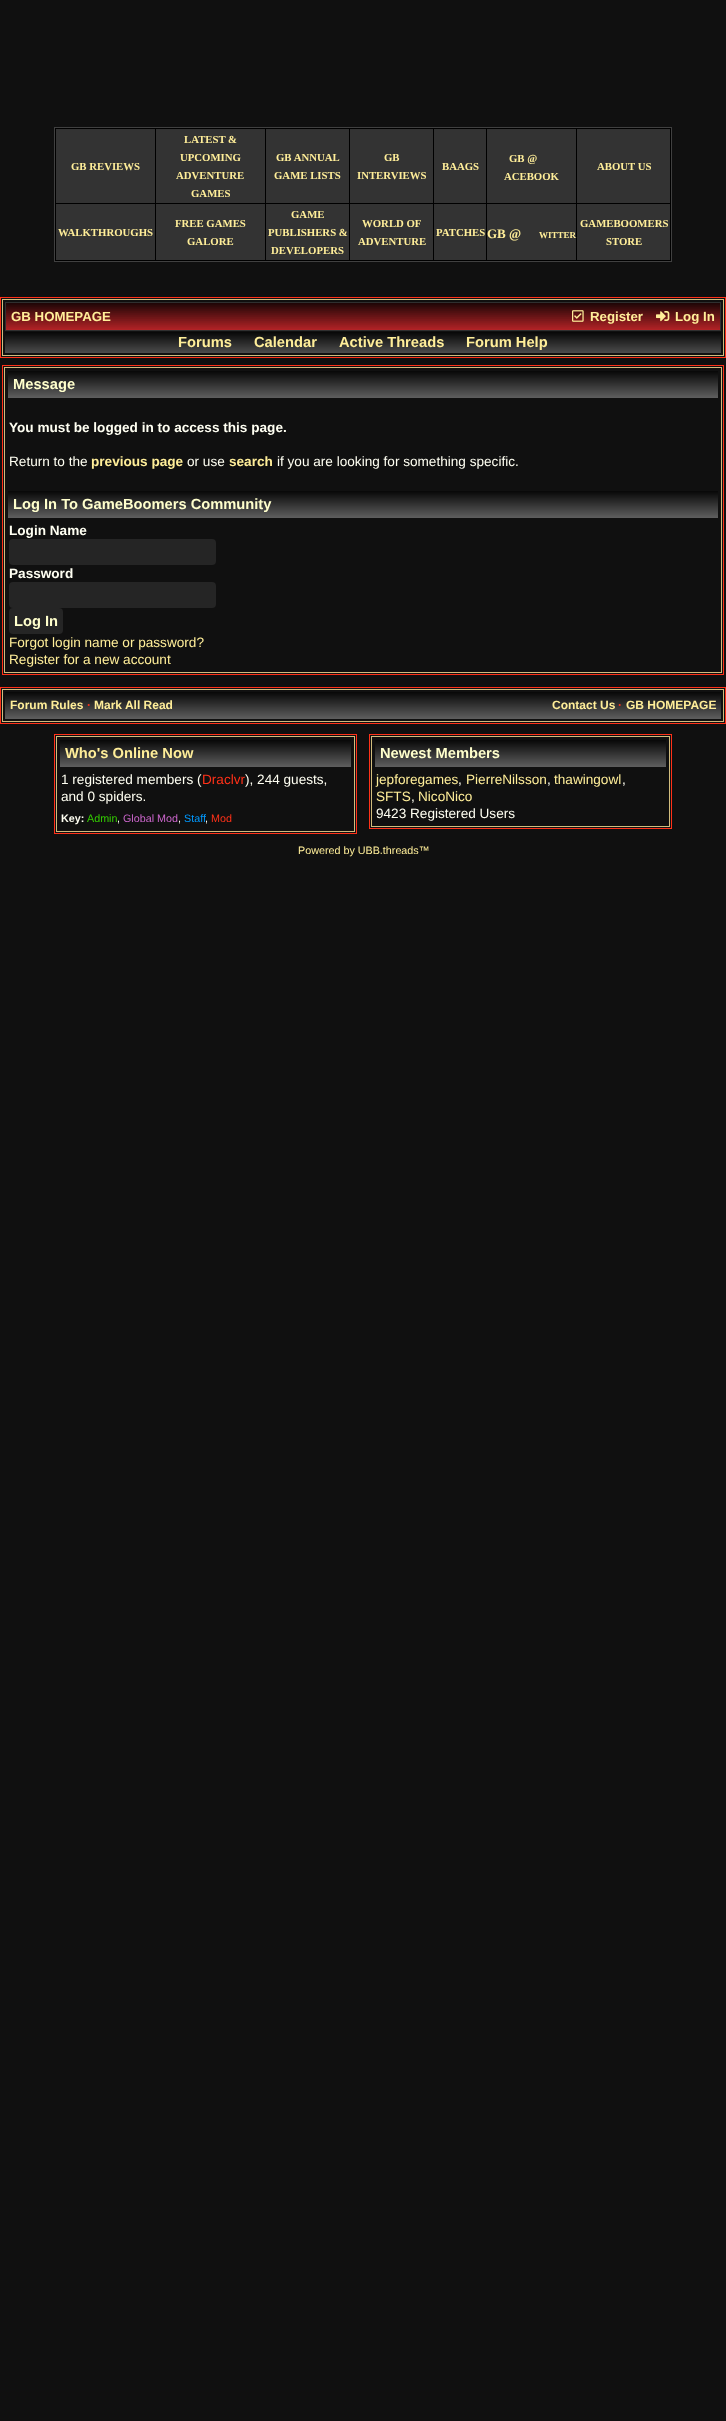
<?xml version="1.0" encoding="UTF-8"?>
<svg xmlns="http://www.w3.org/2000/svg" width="726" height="2421">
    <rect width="100%" height="100%" fill="#101010"/>
    <rect x="54.5" y="127.5" width="617" height="134" fill="#000000" stroke="#404040"/>
    <rect x="56" y="129" width="99" height="74" fill="#333333"/>
    <text x="71" y="170" font-family="Liberation Serif" font-size="10.75" font-weight="700" fill="#FFEE99">GB REVIEWS</text>
    <rect x="156" y="129" width="109" height="74" fill="#333333"/>
    <text x="184" y="143" font-family="Liberation Serif" font-size="10.75" font-weight="700" fill="#FFEE99">LATEST &amp;</text>
    <text x="180" y="161" font-family="Liberation Serif" font-size="10.75" font-weight="700" fill="#FFEE99">UPCOMING</text>
    <text x="176" y="179" font-family="Liberation Serif" font-size="10.75" font-weight="700" fill="#FFEE99">ADVENTURE</text>
    <text x="191" y="197" font-family="Liberation Serif" font-size="10.75" font-weight="700" fill="#FFEE99">GAMES</text>
    <rect x="266" y="129" width="83" height="74" fill="#333333"/>
    <text x="276" y="161" font-family="Liberation Serif" font-size="10.75" font-weight="700" fill="#FFEE99">GB ANNUAL</text>
    <text x="274" y="179" font-family="Liberation Serif" font-size="10.75" font-weight="700" fill="#FFEE99">GAME LISTS</text>
    <rect x="350" y="129" width="83" height="74" fill="#333333"/>
    <text x="384" y="161" font-family="Liberation Serif" font-size="10.75" font-weight="700" fill="#FFEE99">GB</text>
    <text x="357" y="179" font-family="Liberation Serif" font-size="10.75" font-weight="700" fill="#FFEE99">INTERVIEWS</text>
    <rect x="434" y="129" width="52" height="74" fill="#333333"/>
    <text x="442" y="170" font-family="Liberation Serif" font-size="10.75" font-weight="700" fill="#FFEE99">BAAGS</text>
    <rect x="487" y="129" width="89" height="74" fill="#333333"/>
    <text x="509" y="162" font-family="Liberation Serif" font-size="10.75" font-weight="700" fill="#FFEE99">GB @</text>
    <text x="504" y="180" font-family="Liberation Serif" font-size="10.75" font-weight="700" fill="#FFEE99">ACEBOOK</text>
    <rect x="577" y="129" width="93" height="74" fill="#333333"/>
    <text x="597" y="170" font-family="Liberation Serif" font-size="10.75" font-weight="700" fill="#FFEE99">ABOUT US</text>
    <rect x="56" y="204" width="99" height="56" fill="#333333"/>
    <text x="58" y="236" font-family="Liberation Serif" font-size="10.75" font-weight="700" fill="#FFEE99">WALKTHROUGHS</text>
    <rect x="156" y="204" width="109" height="56" fill="#333333"/>
    <text x="175" y="227" font-family="Liberation Serif" font-size="10.75" font-weight="700" fill="#FFEE99">FREE GAMES</text>
    <text x="187" y="245" font-family="Liberation Serif" font-size="10.75" font-weight="700" fill="#FFEE99">GALORE</text>
    <rect x="266" y="204" width="83" height="56" fill="#333333"/>
    <text x="291" y="218" font-family="Liberation Serif" font-size="10.75" font-weight="700" fill="#FFEE99">GAME</text>
    <text x="268" y="236" font-family="Liberation Serif" font-size="10.75" font-weight="700" fill="#FFEE99">PUBLISHERS &amp;</text>
    <text x="271" y="254" font-family="Liberation Serif" font-size="10.75" font-weight="700" fill="#FFEE99">DEVELOPERS</text>
    <rect x="350" y="204" width="83" height="56" fill="#333333"/>
    <text x="362" y="227" font-family="Liberation Serif" font-size="10.75" font-weight="700" fill="#FFEE99">WORLD OF</text>
    <text x="358" y="245" font-family="Liberation Serif" font-size="10.75" font-weight="700" fill="#FFEE99">ADVENTURE</text>
    <rect x="434" y="204" width="52" height="56" fill="#333333"/>
    <text x="436" y="236" font-family="Liberation Serif" font-size="10.75" font-weight="700" fill="#FFEE99">PATCHES</text>
    <rect x="487" y="204" width="89" height="56" fill="#333333"/>
    <text x="487" y="238" font-family="Liberation Serif" font-size="13" font-weight="700" fill="#FFEE99">GB @</text>
    <text x="539" y="238" font-family="Liberation Serif" font-size="9" font-weight="700" fill="#FFEE99">WITTER</text>
    <rect x="577" y="204" width="93" height="56" fill="#333333"/>
    <text x="580" y="227" font-family="Liberation Serif" font-size="10.75" font-weight="700" fill="#FFEE99">GAMEBOOMERS</text>
    <text x="606" y="245" font-family="Liberation Serif" font-size="10.75" font-weight="700" fill="#FFEE99">STORE</text>
    <rect x="0.5" y="297.5" width="725" height="60" fill="none" stroke="#FF3118"/>
    <rect x="2.5" y="299.5" width="721" height="56" fill="none" stroke="#D1BD7E"/>
    <image x="6" y="303" width="714" height="27" href="img_01.png"/>
    <rect x="5.5" y="302.5" width="715" height="28" fill="none" stroke="#303030"/>
    <text x="11" y="321" font-family="Liberation Sans" font-size="13.25" font-weight="700" fill="#FFEE99">GB HOMEPAGE</text>
    <image x="572" y="310" width="12" height="12" href="img_02.png"/>
    <text x="590" y="321" font-family="Liberation Sans" font-size="13.25" font-weight="700" fill="#FFEE99">Register</text>
    <image x="656" y="311" width="14" height="11" href="img_03.png"/>
    <text x="675" y="321" font-family="Liberation Sans" font-size="13.25" font-weight="700" fill="#FFEE99">Log In</text>
    <image x="5" y="332" width="716" height="21" href="img_04.png"/>
    <text x="178" y="347" font-family="Liberation Sans" font-size="14.7" font-weight="700" fill="#FFEE99">Forums</text>
    <text x="254" y="347" font-family="Liberation Sans" font-size="14.7" font-weight="700" fill="#FFEE99">Calendar</text>
    <text x="339" y="347" font-family="Liberation Sans" font-size="14.7" font-weight="700" fill="#FFEE99">Active Threads</text>
    <text x="466" y="347" font-family="Liberation Sans" font-size="14.7" font-weight="700" fill="#FFEE99">Forum Help</text>
    <rect x="2.5" y="365.5" width="721" height="309" fill="none" stroke="#FF3118"/>
    <rect x="4.5" y="367.5" width="717" height="305" fill="none" stroke="#D1BD7E"/>
    <image x="8" y="371" width="710" height="27" href="img_05.png"/>
    <text x="13" y="389" font-family="Liberation Sans" font-size="14.7" font-weight="700" fill="#FFFFCC">Message</text>
    <text x="9" y="432" font-family="Liberation Sans" font-size="13.6" font-weight="700" fill="#FFFFF2">You must be logged in to access this page.</text>
    <text x="9" y="466" font-family="Liberation Sans" font-size="13.6" fill="#FFFFF2">Return to the</text>
    <text x="91" y="466" font-family="Liberation Sans" font-size="13.6" font-weight="700" fill="#FFEE99">previous page</text>
    <text x="187" y="466" font-family="Liberation Sans" font-size="13.6" fill="#FFFFF2">or use</text>
    <text x="229" y="466" font-family="Liberation Sans" font-size="13.6" font-weight="700" fill="#FFEE99">search</text>
    <text x="277" y="466" font-family="Liberation Sans" font-size="13.6" fill="#FFFFF2">if you are looking for something specific.</text>
    <image x="8" y="491" width="710" height="27" href="img_05.png"/>
    <text x="13" y="509" font-family="Liberation Sans" font-size="14.7" font-weight="700" fill="#FFFFCC">Log In To GameBoomers Community</text>
    <text x="9" y="535" font-family="Liberation Sans" font-size="13.6" font-weight="700" fill="#FFFFF2">Login Name</text>
    <rect x="9" y="539" width="207" height="26" rx="4" fill="#252525"/>
    <text x="9" y="578" font-family="Liberation Sans" font-size="13.6" font-weight="700" fill="#FFFFF2">Password</text>
    <rect x="9" y="582" width="207" height="26" rx="4" fill="#252525"/>
    <rect x="9" y="608" width="54" height="26" rx="4" fill="#252525"/>
    <text x="14" y="626" font-family="Liberation Sans" font-size="14.7" font-weight="700" fill="#FFFFCC">Log In</text>
    <text font-family="Liberation Sans" font-size="13.6" fill="#FFEE99">
        <tspan x="9" y="647">Forgot login name or password?</tspan>
        <tspan x="9" y="664">Register for a new account</tspan>
    </text>
    <rect x="0.5" y="687.5" width="725" height="36" fill="none" stroke="#FF3118"/>
    <rect x="2.5" y="689.5" width="721" height="32" fill="none" stroke="#D1BD7E"/>
    <image x="5" y="692" width="716" height="27" href="img_06.png"/>
    <text x="10" y="709" font-family="Liberation Sans" font-size="12" font-weight="700" fill="#FFEE99">Forum Rules</text>
    <text x="87" y="709" font-family="Liberation Sans" font-size="12" font-weight="700" fill="#FF3118">·</text>
    <text x="94" y="709" font-family="Liberation Sans" font-size="12" font-weight="700" fill="#FFEE99">Mark All Read</text>
    <text x="552" y="709" font-family="Liberation Sans" font-size="12" font-weight="700" fill="#FFEE99">Contact Us</text>
    <text x="618" y="709" font-family="Liberation Sans" font-size="12" font-weight="700" fill="#FF3118">·</text>
    <text x="626" y="709" font-family="Liberation Sans" font-size="12" font-weight="700" fill="#FFEE99">GB HOMEPAGE</text>
    <rect x="54.5" y="734.5" width="302" height="99" fill="none" stroke="#FF3118"/>
    <rect x="56.5" y="736.5" width="298" height="95" fill="none" stroke="#D1BD7E"/>
    <image x="60" y="740" width="291" height="27" href="img_07.png"/>
    <text x="65" y="758" font-family="Liberation Sans" font-size="14.7" font-weight="700" fill="#FFEE99">Who's Online Now</text>
    <text x="61" y="784" font-family="Liberation Sans" font-size="13.6" fill="#FFFFF2">1 registered members (</text>
    <text x="202" y="784" font-family="Liberation Sans" font-size="13.6" fill="#FF3118">Draclvr</text>
    <text x="245" y="784" font-family="Liberation Sans" font-size="13.6" fill="#FFFFF2">), 244 guests,</text>
    <text x="61" y="801" font-family="Liberation Sans" font-size="13.6" fill="#FFFFF2">and 0 spiders.</text>
    <text x="61" y="822" font-family="Liberation Sans" font-size="10.75" font-weight="700" fill="#FFFFF2">Key:</text>
    <text x="87" y="822" font-family="Liberation Sans" font-size="10.75" fill="#33CC00">Admin</text>
    <text x="117" y="822" font-family="Liberation Sans" font-size="10.75" fill="#FFFFF2">,</text>
    <text x="123" y="822" font-family="Liberation Sans" font-size="10.75" fill="#CC66CC">Global Mod</text>
    <text x="178" y="822" font-family="Liberation Sans" font-size="10.75" fill="#FFFFF2">,</text>
    <text x="184" y="822" font-family="Liberation Sans" font-size="10.75" fill="#0099FF">Staff</text>
    <text x="205" y="822" font-family="Liberation Sans" font-size="10.75" fill="#FFFFF2">,</text>
    <text x="211" y="822" font-family="Liberation Sans" font-size="10.75" fill="#FF3118">Mod</text>
    <rect x="369.5" y="734.5" width="302" height="94" fill="none" stroke="#FF3118"/>
    <rect x="371.5" y="736.5" width="298" height="90" fill="none" stroke="#D1BD7E"/>
    <image x="375" y="740" width="291" height="27" href="img_07.png"/>
    <text x="380" y="758" font-family="Liberation Sans" font-size="14.7" font-weight="700" fill="#FFFFCC">Newest Members</text>
    <text x="376" y="784" font-family="Liberation Sans" font-size="13.6" fill="#FFEE99">jepforegames</text>
    <text x="458" y="784" font-family="Liberation Sans" font-size="13.6" fill="#FFFFF2">,</text>
    <text x="466" y="784" font-family="Liberation Sans" font-size="13.6" fill="#FFEE99">PierreNilsson</text>
    <text x="547" y="784" font-family="Liberation Sans" font-size="13.6" fill="#FFFFF2">,</text>
    <text x="554" y="784" font-family="Liberation Sans" font-size="13.6" fill="#FFEE99">thawingowl</text>
    <text x="622" y="784" font-family="Liberation Sans" font-size="13.6" fill="#FFFFF2">,</text>
    <text x="376" y="801" font-family="Liberation Sans" font-size="13.6" fill="#FFEE99">SFTS</text>
    <text x="411" y="801" font-family="Liberation Sans" font-size="13.6" fill="#FFFFF2">,</text>
    <text x="418" y="801" font-family="Liberation Sans" font-size="13.6" fill="#FFEE99">NicoNico</text>
    <text x="376" y="818" font-family="Liberation Sans" font-size="13.6" fill="#FFFFF2">9423 Registered Users</text>
    <text x="298" y="854" font-family="Liberation Sans" font-size="10.75" fill="#FFEE99">Powered by UBB.threads™</text>
</svg>
